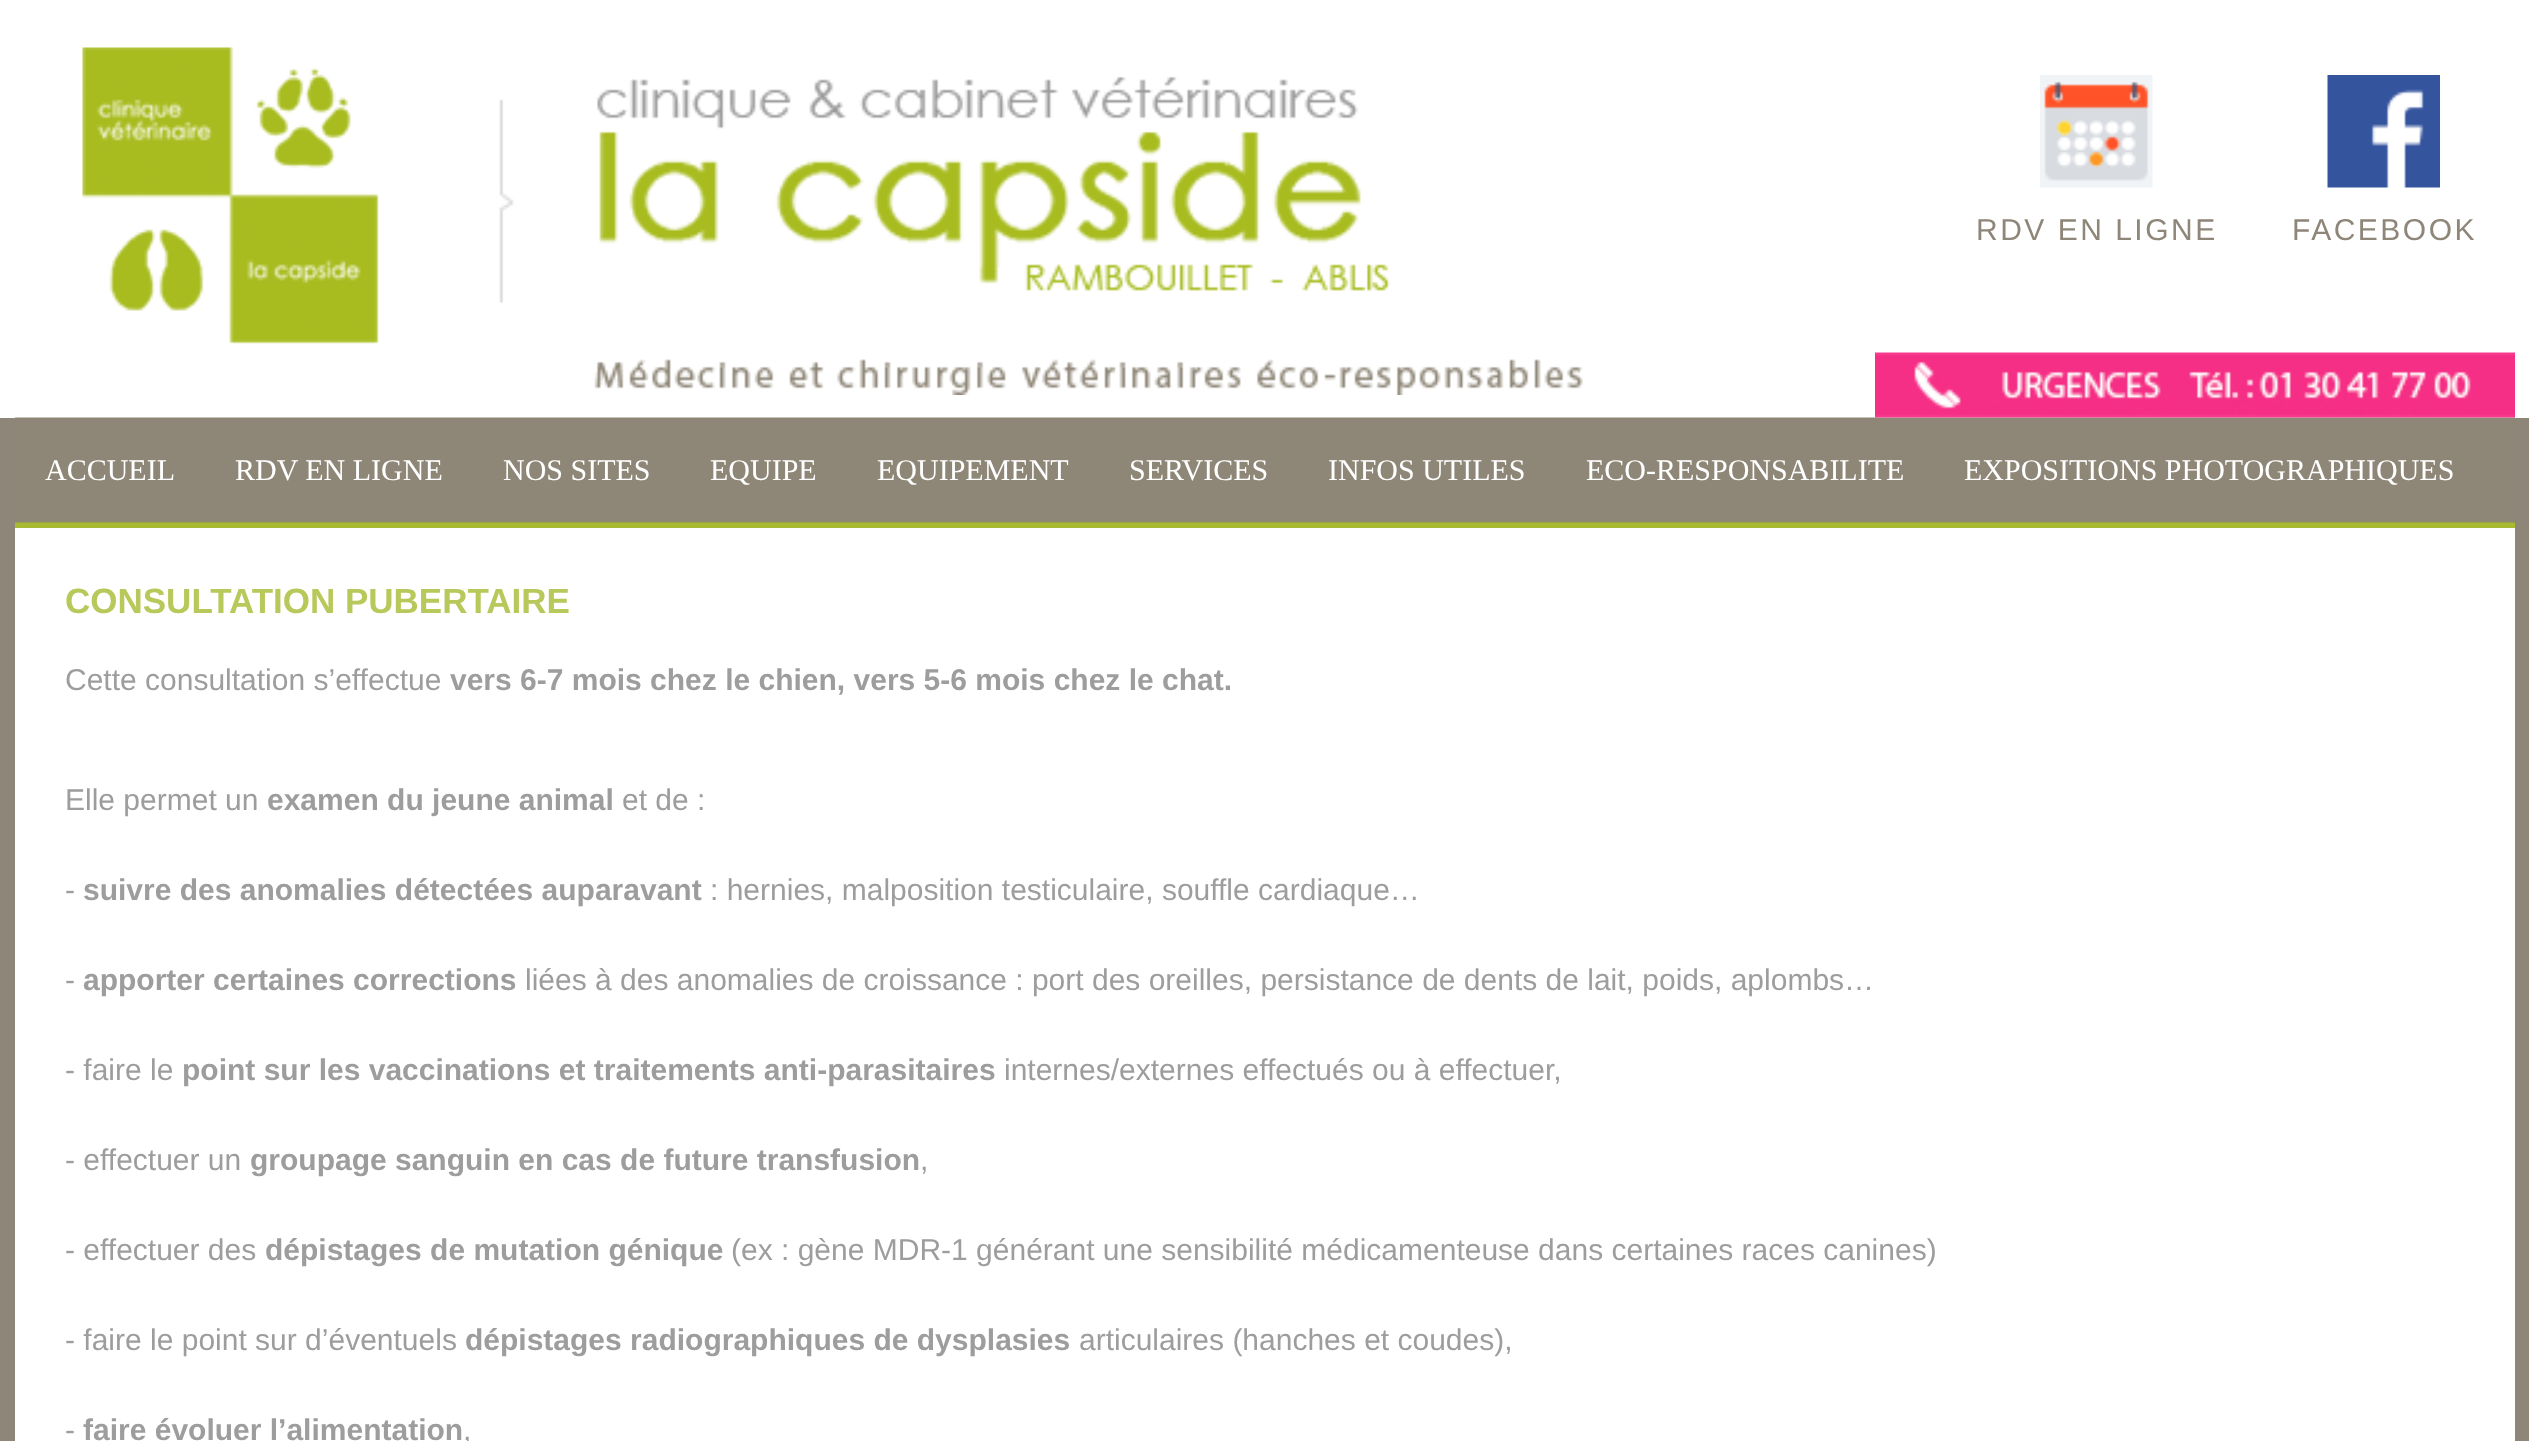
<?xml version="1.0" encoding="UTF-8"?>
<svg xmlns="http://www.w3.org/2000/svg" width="2529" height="1441">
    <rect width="100%" height="100%" fill="#8E8678"/>
    <rect x="0" y="0" width="2529" height="418" fill="#FFFFFF"/>
    <image x="82" y="47" width="1501" height="348" href="img_01.png"/>
    <image x="2040" y="75" width="113" height="113" href="img_02.png"/>
    <text x="1976" y="240" font-family="Liberation Sans" font-size="30" letter-spacing="2.5" fill="#8E8678">RDV EN LIGNE</text>
    <image x="2327" y="75" width="113" height="113" href="img_03.png"/>
    <text x="2292" y="240" font-family="Liberation Sans" font-size="30" letter-spacing="2.5" fill="#8E8678">FACEBOOK</text>
    <image x="15" y="417" width="2500" height="106" href="img_05.png"/>
    <image x="1875" y="352" width="640" height="66" href="img_04.png"/>
    <rect x="15" y="528" width="2500" height="913" fill="#FFFFFF"/>
    <rect x="15" y="523" width="2500" height="5" fill="#A8BA32"/>
    <text x="45" y="480" font-family="Liberation Serif" font-size="30" fill="#FFFFFF">ACCUEIL</text>
    <text x="235" y="480" font-family="Liberation Serif" font-size="30" fill="#FFFFFF">RDV EN LIGNE</text>
    <text x="503" y="480" font-family="Liberation Serif" font-size="30" fill="#FFFFFF">NOS SITES</text>
    <text x="710" y="480" font-family="Liberation Serif" font-size="30" fill="#FFFFFF">EQUIPE</text>
    <text x="877" y="480" font-family="Liberation Serif" font-size="30" fill="#FFFFFF">EQUIPEMENT</text>
    <text x="1129" y="480" font-family="Liberation Serif" font-size="30" fill="#FFFFFF">SERVICES</text>
    <text x="1328" y="480" font-family="Liberation Serif" font-size="30" fill="#FFFFFF">INFOS UTILES</text>
    <text x="1586" y="480" font-family="Liberation Serif" font-size="30" fill="#FFFFFF">ECO-RESPONSABILITE</text>
    <text x="1964" y="480" font-family="Liberation Serif" font-size="30" fill="#FFFFFF">EXPOSITIONS PHOTOGRAPHIQUES</text>
    <text x="65" y="613" font-family="Liberation Sans" font-size="35" font-weight="700" fill="#B9C85B">CONSULTATION PUBERTAIRE</text>
    <text x="65" y="690" font-family="Liberation Sans" font-size="30" fill="#9D9D9D">Cette consultation s’effectue</text>
    <text x="450" y="690" font-family="Liberation Sans" font-size="30" font-weight="700" fill="#9D9D9D">vers 6-7 mois chez le chien, vers 5-6 mois chez le chat.</text>
    <text x="65" y="810" font-family="Liberation Sans" font-size="30" fill="#9D9D9D">Elle permet un</text>
    <text x="267" y="810" font-family="Liberation Sans" font-size="30" font-weight="700" fill="#9D9D9D">examen du jeune animal</text>
    <text x="622" y="810" font-family="Liberation Sans" font-size="30" fill="#9D9D9D">et de :</text>
    <text x="65" y="900" font-family="Liberation Sans" font-size="30" fill="#9D9D9D">-</text>
    <text x="83" y="900" font-family="Liberation Sans" font-size="30" font-weight="700" fill="#9D9D9D">suivre des anomalies détectées auparavant</text>
    <text x="710" y="900" font-family="Liberation Sans" font-size="30" fill="#9D9D9D">: hernies, malposition testiculaire, souffle cardiaque…</text>
    <text x="65" y="990" font-family="Liberation Sans" font-size="30" fill="#9D9D9D">-</text>
    <text x="83" y="990" font-family="Liberation Sans" font-size="30" font-weight="700" fill="#9D9D9D">apporter certaines corrections</text>
    <text x="525" y="990" font-family="Liberation Sans" font-size="30" fill="#9D9D9D">liées à des anomalies de croissance : port des oreilles, persistance de dents de lait, poids, aplombs…</text>
    <text x="65" y="1080" font-family="Liberation Sans" font-size="30" fill="#9D9D9D">- faire le</text>
    <text x="182" y="1080" font-family="Liberation Sans" font-size="30" font-weight="700" fill="#9D9D9D">point sur les vaccinations et traitements anti-parasitaires</text>
    <text x="1004" y="1080" font-family="Liberation Sans" font-size="30" fill="#9D9D9D">internes/externes effectués ou à effectuer,</text>
    <text x="65" y="1170" font-family="Liberation Sans" font-size="30" fill="#9D9D9D">- effectuer un</text>
    <text x="250" y="1170" font-family="Liberation Sans" font-size="30" font-weight="700" fill="#9D9D9D">groupage sanguin en cas de future transfusion</text>
    <text x="920" y="1170" font-family="Liberation Sans" font-size="30" fill="#9D9D9D">,</text>
    <text x="65" y="1260" font-family="Liberation Sans" font-size="30" fill="#9D9D9D">- effectuer des</text>
    <text x="265" y="1260" font-family="Liberation Sans" font-size="30" font-weight="700" fill="#9D9D9D">dépistages de mutation génique</text>
    <text x="731" y="1260" font-family="Liberation Sans" font-size="30" fill="#9D9D9D">(ex : gène MDR-1 générant une sensibilité médicamenteuse dans certaines races canines)</text>
    <text x="65" y="1350" font-family="Liberation Sans" font-size="30" fill="#9D9D9D">- faire le point sur d’éventuels</text>
    <text x="465" y="1350" font-family="Liberation Sans" font-size="30" font-weight="700" fill="#9D9D9D">dépistages radiographiques de dysplasies</text>
    <text x="1079" y="1350" font-family="Liberation Sans" font-size="30" fill="#9D9D9D">articulaires (hanches et coudes),</text>
    <text x="65" y="1440" font-family="Liberation Sans" font-size="30" fill="#9D9D9D">-</text>
    <text x="83" y="1440" font-family="Liberation Sans" font-size="30" font-weight="700" fill="#9D9D9D">faire évoluer l’alimentation</text>
    <text x="463" y="1440" font-family="Liberation Sans" font-size="30" fill="#9D9D9D">,</text>
</svg>
